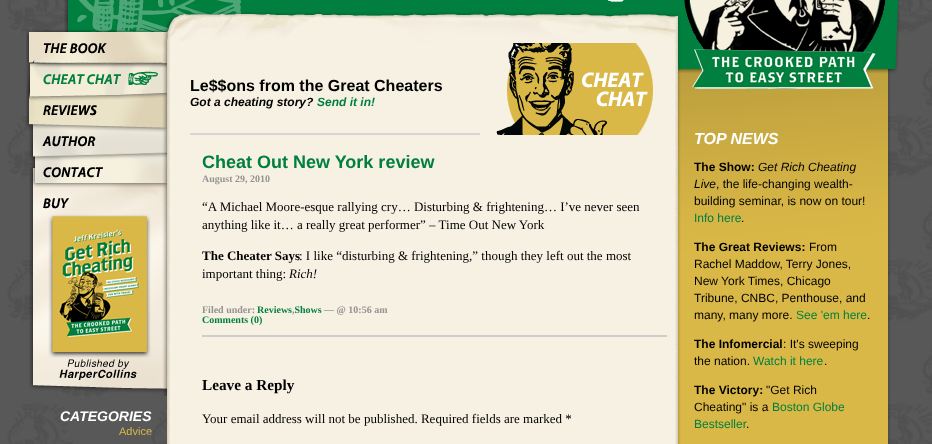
<?xml version="1.0" encoding="UTF-8"?>
<svg xmlns="http://www.w3.org/2000/svg" width="932" height="444">
    <rect width="100%" height="100%" fill="#FFFFFF"/>
    <image x="0" y="0" width="932" height="444" href="img_01.png"/>
    <image x="64" y="0" width="836" height="28" href="img_02.png"/>
    <image x="26" y="28" width="141" height="31" href="img_03.png"/>
    <image x="26" y="59" width="141" height="31" href="img_04.png"/>
    <image x="26" y="90" width="141" height="31" href="img_05.png"/>
    <image x="26" y="121" width="141" height="31" href="img_06.png"/>
    <image x="29" y="152" width="138" height="31" href="img_07.png"/>
    <image x="29" y="183" width="138" height="31" href="img_08.png"/>
    <image x="29" y="214" width="138" height="182" href="img_09.png"/>
    <text x="60" y="421" font-family="Liberation Sans" font-size="14" font-weight="700" font-style="italic" fill="#FFFFFF">CATEGORIES</text>
    <text x="119" y="435" font-family="Liberation Sans" font-size="11" fill="#DAB847">Advice</text>
    <image x="167" y="28" width="511" height="15" href="img_10.png"/>
    <image x="167" y="43" width="511" height="401" href="img_11.png"/>
    <rect x="190" y="133" width="290" height="2" fill="#D6D6D6"/>
    <text x="190" y="91" font-family="Liberation Sans" font-size="16" font-weight="700" fill="#000000">Le$$ons from the Great Cheaters</text>
    <text x="190" y="106" font-family="Liberation Sans" font-size="12" font-weight="700" font-style="italic" fill="#000000">Got a cheating story?</text>
    <text x="317" y="106" font-family="Liberation Sans" font-size="12" font-weight="700" font-style="italic" fill="#007F3E">Send it in!</text>
    <image x="496" y="43" width="157" height="92" href="img_12.png"/>
    <text x="202" y="168" font-family="Liberation Sans" font-size="18" font-weight="700" fill="#007F3E">Cheat Out New York review</text>
    <text x="202" y="182" font-family="Liberation Serif" font-size="10" font-weight="700" fill="#939393">August 29, 2010</text>
    <text font-family="Liberation Serif" font-size="13" fill="#000000">
        <tspan x="202" y="211">“A Michael Moore-esque rallying cry… Disturbing &amp; frightening… I’ve never seen</tspan>
        <tspan x="202" y="229">anything like it… a really great performer” – Time Out New York</tspan>
    </text>
    <text x="202" y="260" font-family="Liberation Serif" font-size="13" font-weight="700" fill="#000000">The Cheater Says</text>
    <text x="299" y="260" font-family="Liberation Serif" font-size="13" fill="#000000">: I like “disturbing &amp; frightening,” though they left out the most</text>
    <text x="202" y="278" font-family="Liberation Serif" font-size="13" fill="#000000">important thing:</text>
    <text x="289" y="278" font-family="Liberation Serif" font-size="13" font-style="italic" fill="#000000">Rich!</text>
    <text x="202" y="313" font-family="Liberation Serif" font-size="10" font-weight="700" fill="#939393">Filed under:</text>
    <text x="257" y="313" font-family="Liberation Serif" font-size="10" font-weight="700" fill="#007F3E">Reviews Shows</text>
    <text x="324" y="313" font-family="Liberation Serif" font-size="10" font-weight="700" fill="#939393">— @ 10:56 am</text>
    <text x="292" y="313" font-family="Liberation Serif" font-size="10" font-weight="700" fill="#939393">,</text>
    <text x="202" y="323" font-family="Liberation Serif" font-size="10" font-weight="700" fill="#007F3E">Comments (0)</text>
    <rect x="202" y="335" width="465" height="2" fill="#CECECE"/>
    <text x="202" y="390" font-family="Liberation Serif" font-size="15.25" font-weight="700" fill="#000000">Leave a Reply</text>
    <text x="202" y="423" font-family="Liberation Serif" font-size="13" fill="#000000">Your email address will not be published. Required fields are marked *</text>
    <image x="678" y="28" width="221" height="416" href="img_13.png"/>
    <text x="694" y="144" font-family="Liberation Sans" font-size="16" font-weight="700" font-style="italic" fill="#FFFFFF">TOP NEWS</text>
    <text x="694" y="171" font-family="Liberation Sans" font-size="12" font-weight="700" fill="#000000">The Show:</text>
    <text x="758" y="171" font-family="Liberation Sans" font-size="12" font-style="italic" fill="#000000">Get Rich Cheating</text>
    <text x="694" y="188" font-family="Liberation Sans" font-size="12" font-style="italic" fill="#000000">Live</text>
    <text x="716" y="188" font-family="Liberation Sans" font-size="12" fill="#000000">, the life-changing wealth-</text>
    <text x="694" y="205" font-family="Liberation Sans" font-size="12" fill="#000000">building seminar, is now on tour!</text>
    <text x="694" y="222" font-family="Liberation Sans" font-size="12" fill="#007F3E">Info here</text>
    <text x="741" y="222" font-family="Liberation Sans" font-size="12" fill="#000000">.</text>
    <text x="694" y="251" font-family="Liberation Sans" font-size="12" font-weight="700" fill="#000000">The Great Reviews:</text>
    <text x="809" y="251" font-family="Liberation Sans" font-size="12" fill="#000000">From</text>
    <text font-family="Liberation Sans" font-size="12" fill="#000000">
        <tspan x="694" y="268">Rachel Maddow, Terry Jones,</tspan>
        <tspan x="694" y="285">New York Times, Chicago</tspan>
        <tspan x="694" y="302">Tribune, CNBC, Penthouse, and</tspan>
        <tspan x="694" y="319">many, many more.</tspan>
    </text>
    <text x="796" y="319" font-family="Liberation Sans" font-size="12" fill="#007F3E">See 'em here</text>
    <text x="867" y="319" font-family="Liberation Sans" font-size="12" fill="#000000">.</text>
    <text x="694" y="348" font-family="Liberation Sans" font-size="12" font-weight="700" fill="#000000">The Infomercial</text>
    <text x="783" y="348" font-family="Liberation Sans" font-size="12" fill="#000000">: It's sweeping</text>
    <text x="694" y="365" font-family="Liberation Sans" font-size="12" fill="#000000">the nation.</text>
    <text x="753" y="365" font-family="Liberation Sans" font-size="12" fill="#007F3E">Watch it here</text>
    <text x="824" y="365" font-family="Liberation Sans" font-size="12" fill="#000000">.</text>
    <text x="694" y="394" font-family="Liberation Sans" font-size="12" font-weight="700" fill="#000000">The Victory:</text>
    <text x="766" y="394" font-family="Liberation Sans" font-size="12" fill="#000000">"Get Rich</text>
    <text x="694" y="411" font-family="Liberation Sans" font-size="12" fill="#000000">Cheating" is a</text>
    <text x="772" y="411" font-family="Liberation Sans" font-size="12" fill="#007F3E">Boston Globe</text>
    <text x="694" y="428" font-family="Liberation Sans" font-size="12" fill="#007F3E">Bestseller</text>
    <text x="746" y="428" font-family="Liberation Sans" font-size="12" fill="#000000">.</text>
</svg>
